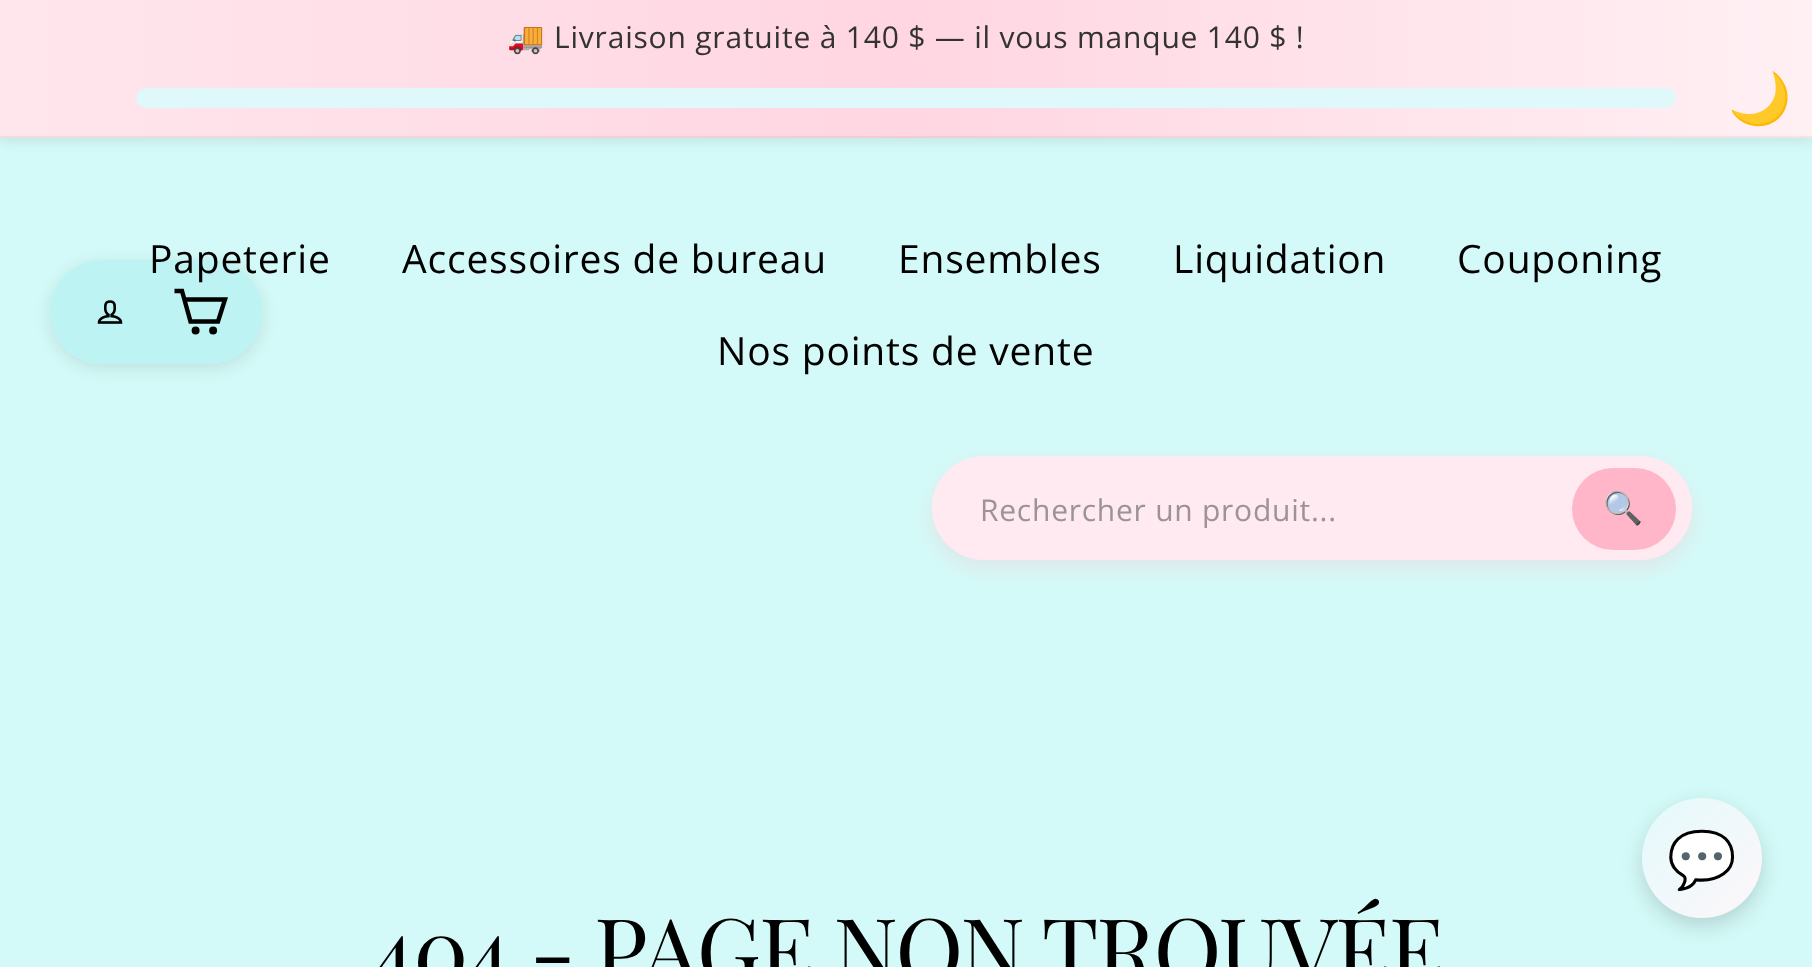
<?xml version="1.0" encoding="UTF-8"?>
<svg xmlns="http://www.w3.org/2000/svg" width="1812" height="967">
    <defs>
        <filter id="blur1" x="-50%" y="-200%" width="200%" height="500%"><feGaussianBlur stdDeviation="6"/></filter>
        <linearGradient id="g1" gradientUnits="userSpaceOnUse" x1="0" y1="68" x2="1812" y2="68"><stop offset="0" stop-color="#FFE6EC"/><stop offset="0.5" stop-color="#FFD6E2"/><stop offset="1" stop-color="#FFF0F4"/></linearGradient>
        <linearGradient id="g2" gradientUnits="userSpaceOnUse" x1="0" y1="68" x2="1812" y2="68"><stop offset="0" stop-color="#F2DBE0"/><stop offset="0.5" stop-color="#F2CBD7"/><stop offset="1" stop-color="#F2E4E8"/></linearGradient>
        <clipPath id="clip1"><rect x="508" y="12" width="796" height="48"/></clipPath>
        <clipPath id="clip2"><path d="M 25 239 H 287 V 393 H 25 Z M 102 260 H 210 C 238.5 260 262 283.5 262 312 C 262 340.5 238.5 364 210 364 H 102 C 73.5 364 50 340.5 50 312 C 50 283.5 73.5 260 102 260 Z" clip-rule="evenodd"/></clipPath>
        <filter id="blur2" x="-50%" y="-200%" width="200%" height="500%"><feGaussianBlur stdDeviation="8"/></filter>
        <filter id="blur3" x="-50%" y="-200%" width="200%" height="500%"><feGaussianBlur stdDeviation="10"/></filter>
        <clipPath id="clip3"><rect x="980" y="488" width="552" height="40"/></clipPath>
        <linearGradient id="g3" gradientUnits="userSpaceOnUse" x1="1642" y1="798" x2="1762" y2="918"><stop offset="0" stop-color="#E3FAFC"/><stop offset="1" stop-color="#FEF6F9"/></linearGradient>
    </defs>
    <rect width="100%" height="100%" fill="#D3FAF8"/>
    <rect x="0" y="4" width="1812" height="138" fill="#000000" fill-opacity="0.08" filter="url(#blur1)"/>
    <rect x="0" y="0" width="1812" height="136" fill="url(#g1)"/>
    <rect x="0" y="136" width="1812" height="2" fill="url(#g2)"/>
    <g clip-path="url(#clip1)">
        <text x="507" y="48" font-family="Noto Color Emoji" font-size="30" letter-spacing="0.8" fill="#333333">🚚</text>
    </g>
    <text x="554" y="48" font-family="Open Sans" font-size="30" letter-spacing="0.8" fill="#333333">Livraison gratuite à 140 $ — il vous manque 140 $ !</text>
    <rect x="136" y="88" width="1540" height="20" rx="10" fill="#DFF9FA"/>
    <text x="1728" y="116" font-family="Noto Color Emoji" font-size="51" letter-spacing="1" fill="#000000">🌙</text>
    <g clip-path="url(#clip2)">
        <rect x="50" y="264" width="212" height="104" rx="52" fill="#000000" fill-opacity="0.1" filter="url(#blur2)"/>
    </g>
    <rect x="50" y="260" width="212" height="104" rx="52" fill="#BAF3F2" fill-opacity="0.9"/>
    <image x="97" y="300" width="26" height="24" href="img_01.png"/>
    <path d="M 184 299.5 H 225 L 218 321.5 H 190.5 L 182 291 H 174.5" fill="none" stroke="#000000" stroke-width="4.4"/>
    <circle cx="195.6" cy="330.4" r="1.8" fill="#000000" stroke="#000000" stroke-width="4.4"/>
    <circle cx="213.1" cy="330.4" r="1.8" fill="#000000" stroke="#000000" stroke-width="4.4"/>
    <text x="149" y="273" font-family="Open Sans" font-size="39" letter-spacing="0.8" fill="#000000">Papeterie</text>
    <text x="402" y="273" font-family="Open Sans" font-size="39" letter-spacing="0.8" fill="#000000">Accessoires de bureau</text>
    <text x="898" y="273" font-family="Open Sans" font-size="39" letter-spacing="0.8" fill="#000000">Ensembles</text>
    <text x="1173" y="273" font-family="Open Sans" font-size="39" letter-spacing="0.8" fill="#000000">Liquidation</text>
    <text x="1457" y="273" font-family="Open Sans" font-size="39" letter-spacing="0.8" fill="#000000">Couponing</text>
    <text x="717" y="365" font-family="Open Sans" font-size="39" letter-spacing="0.8" fill="#000000">Nos points de vente</text>
    <rect x="932" y="464" width="760" height="104" rx="52" fill="#FFB6C5" fill-opacity="0.3" filter="url(#blur3)"/>
    <rect x="932" y="456" width="760" height="104" rx="52" fill="#FFEAF2"/>
    <g clip-path="url(#clip3)">
        <text x="980" y="521" font-family="Open Sans" font-size="30" letter-spacing="0.75" fill="#9D9397">Rechercher un produit...</text>
    </g>
    <rect x="1572" y="468" width="104" height="82" rx="41" fill="#FFB6C8"/>
    <text x="1603" y="519" font-family="Noto Color Emoji" font-size="32" font-weight="700" letter-spacing="0.8" fill="#FFFFFF">🔍</text>
    <text x="370" y="985" font-family="Playfair Display" font-size="92" letter-spacing="-2.3" fill="#000000">404 - PAGE NON TROUVÉE</text>
    <rect x="1642" y="806" width="120" height="120" rx="60" fill="#000000" fill-opacity="0.15" filter="url(#blur3)"/>
    <circle cx="1702" cy="858" r="60" fill="url(#g3)"/>
    <text x="1667" y="879" font-family="Noto Color Emoji" font-size="56" letter-spacing="0.8" fill="#000000">💬</text>
</svg>
